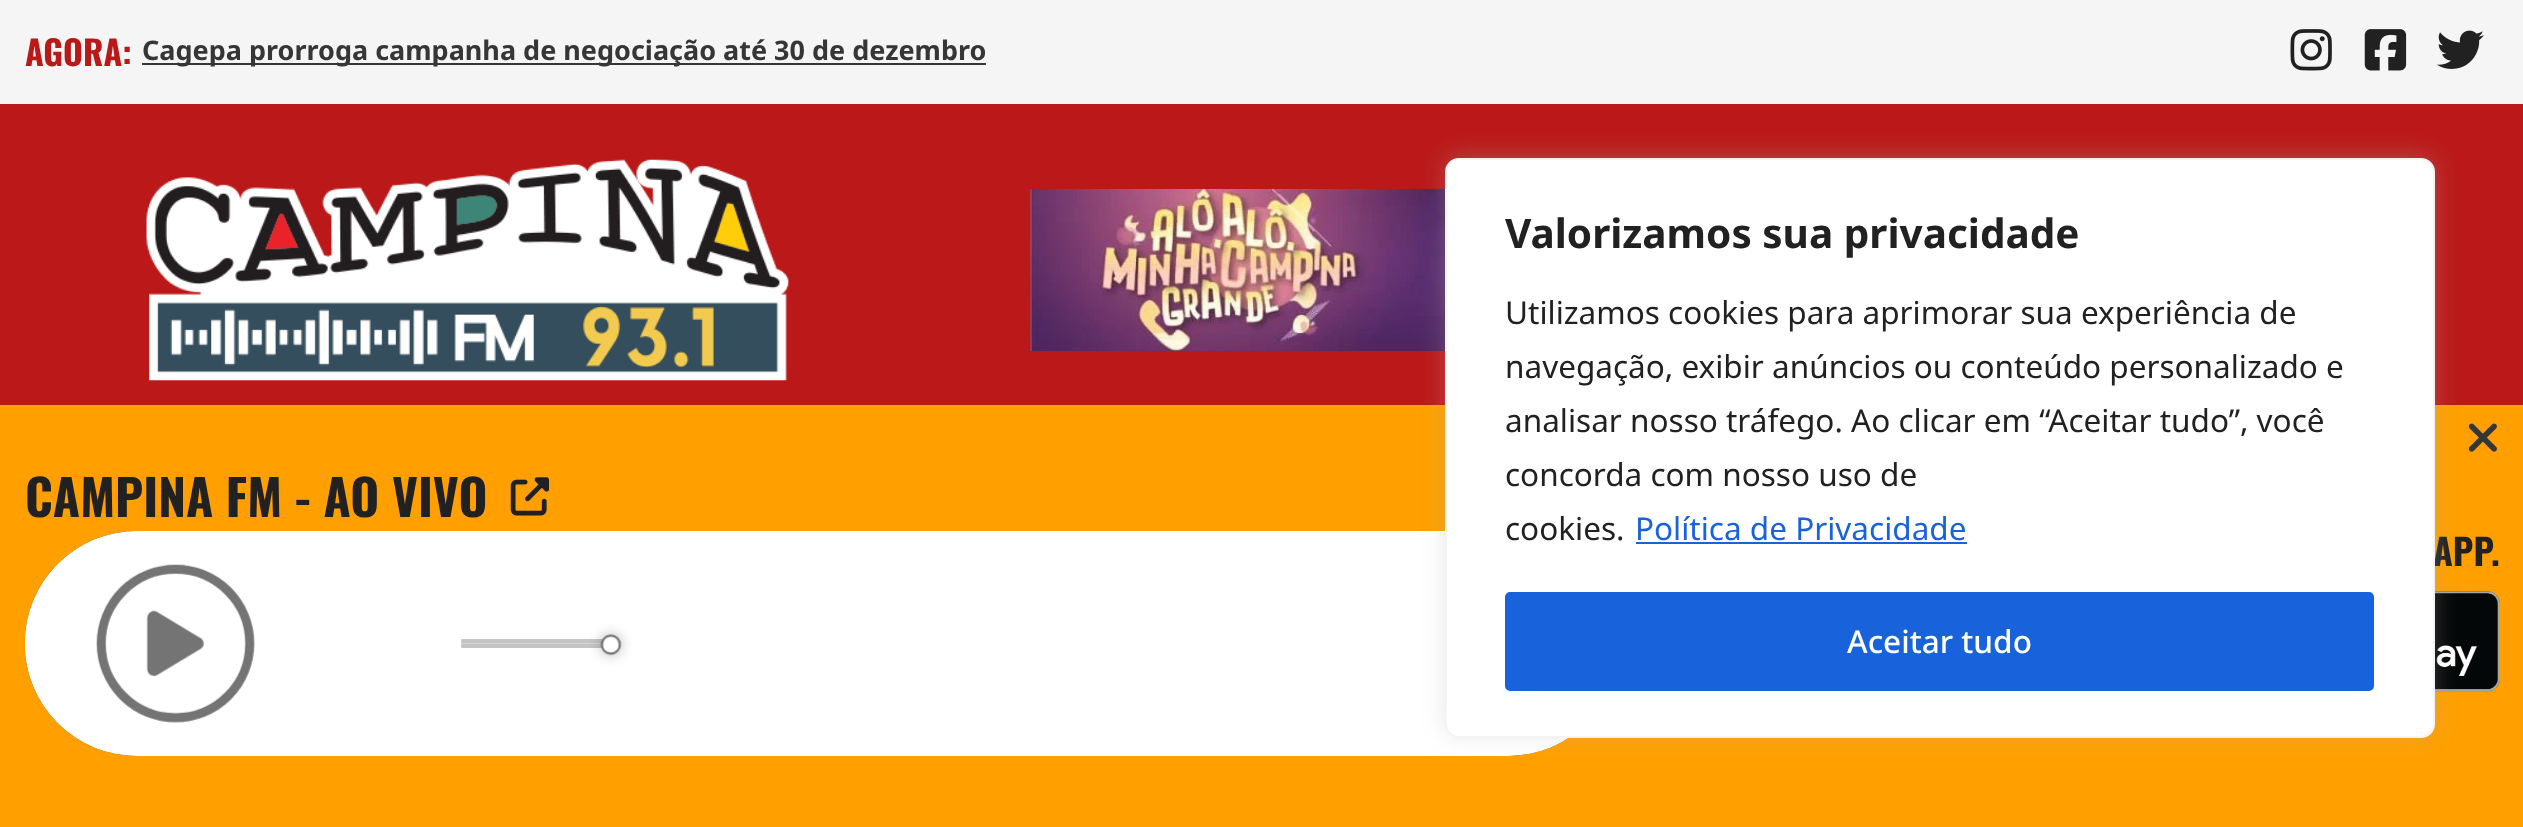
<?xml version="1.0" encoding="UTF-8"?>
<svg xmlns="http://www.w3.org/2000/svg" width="2523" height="827">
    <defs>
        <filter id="blur1" x="-50%" y="-200%" width="200%" height="500%"><feGaussianBlur stdDeviation="11"/></filter>
    </defs>
    <rect width="100%" height="100%" fill="#F5F5F5"/>
    <text x="25" y="66" font-family="Oswald" font-size="34" font-weight="700" fill="#BB1919">AGORA:</text>
    <rect x="142" y="63" width="844" height="2" fill="#363636"/>
    <text x="142" y="60" font-family="Noto Sans" font-size="27" font-weight="700" fill="#363636">Cagepa prorroga campanha de negociação até 30 de dezembro</text>
    <image x="2290" y="29" width="42" height="42" href="img_01.png"/>
    <image x="2364" y="29" width="43" height="42" href="img_02.png"/>
    <image x="2437" y="30" width="47" height="39" href="img_03.png"/>
    <rect x="0" y="104" width="2523" height="301" fill="#BB1919"/>
    <image x="146" y="159" width="643" height="222" href="img_04.png"/>
    <image x="1030" y="189" width="415" height="162" href="img_05.png"/>
    <rect x="0" y="405" width="2523" height="422" fill="#FFA000"/>
    <image x="2468" y="423" width="29" height="29" href="img_06.png"/>
    <text x="25" y="517" font-family="Oswald" font-size="49.5" font-weight="700" fill="#212121">CAMPINA FM - AO VIVO</text>
    <image x="510" y="477" width="39" height="39" href="img_07.png"/>
    <image x="25" y="531" width="1544" height="225" href="img_08.png"/>
    <text x="2433" y="566" font-family="Oswald" font-size="36" font-weight="700" fill="#212121">APP.</text>
    <image x="2435" y="591" width="65" height="101" href="img_09.png"/>
    <rect x="1445" y="155" width="990" height="581" rx="14" fill="#ACABAB" fill-opacity="0.3" filter="url(#blur1)"/>
    <rect x="1446" y="159" width="988" height="578" rx="13" fill="#FFFFFF" stroke="#F4F4F4" stroke-width="2"/>
    <text x="1505" y="248" font-family="Noto Sans" font-size="40.5" font-weight="700" fill="#212121">Valorizamos sua privacidade</text>
    <text font-family="Noto Sans" font-size="31.5" fill="#212121">
        <tspan x="1505" y="324">Utilizamos cookies para aprimorar sua experiência de</tspan>
        <tspan x="1505" y="378">navegação, exibir anúncios ou conteúdo personalizado e</tspan>
        <tspan x="1505" y="432">analisar nosso tráfego. Ao clicar em “Aceitar tudo”, você</tspan>
        <tspan x="1505" y="486">concorda com nosso uso de</tspan>
        <tspan x="1505" y="540">cookies.</tspan>
    </text>
    <text x="1635" y="540" font-family="Noto Sans" font-size="31.5" fill="#1863DC">Política de Privacidade</text>
    <rect x="1636" y="542" width="331" height="2" fill="#1863DC"/>
    <rect x="1507.5" y="594.5" width="864" height="94" rx="2.5" fill="#1863DC" stroke="#1863DC" stroke-width="5"/>
    <text x="1847" y="653" font-family="Noto Sans" font-size="31.5" font-weight="500" fill="#FFFFFF">Aceitar tudo</text>
</svg>
